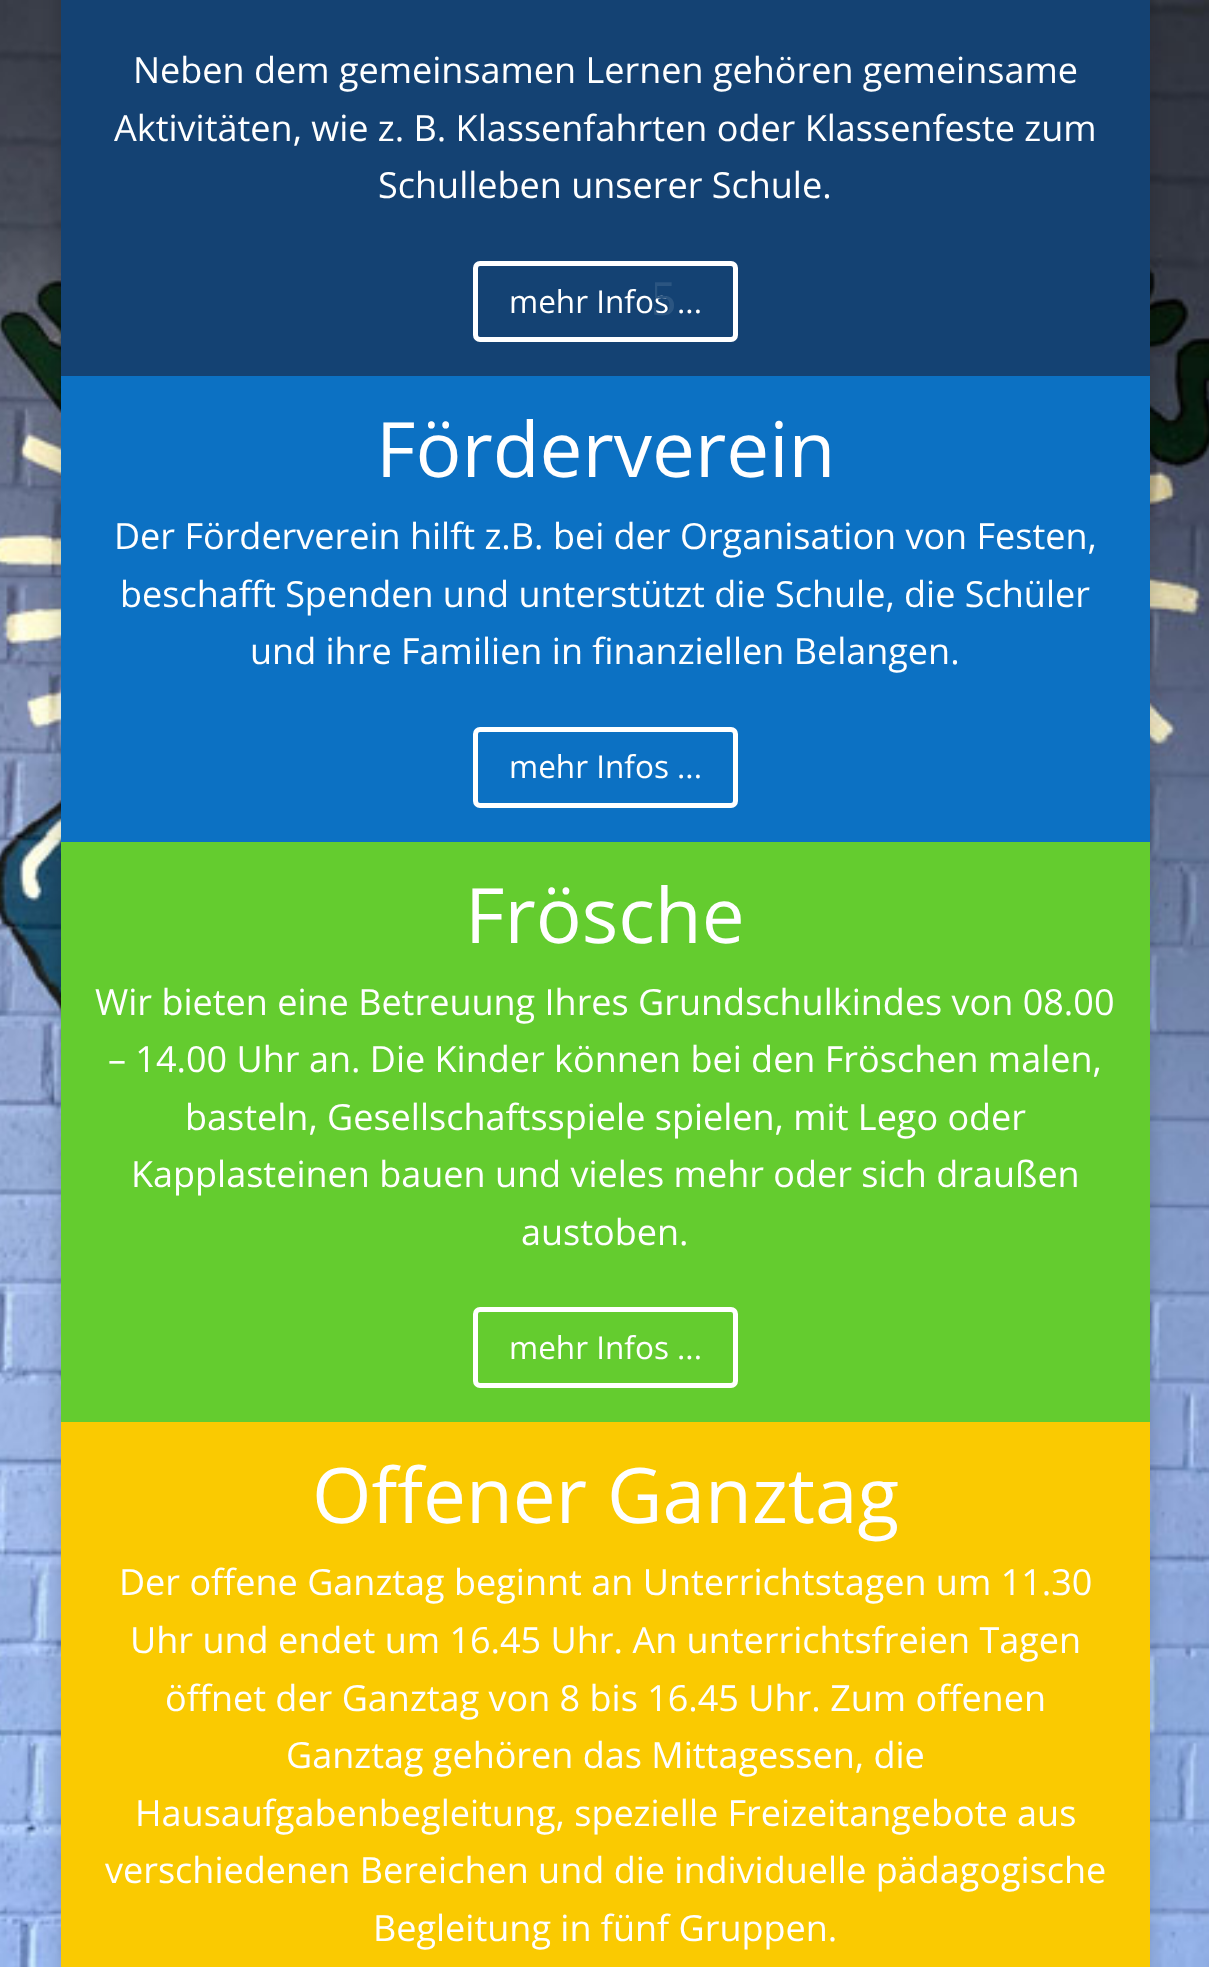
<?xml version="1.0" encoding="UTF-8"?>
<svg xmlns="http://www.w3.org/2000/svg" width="1209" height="1967">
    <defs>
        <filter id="blur1" x="-50%" y="-200%" width="200%" height="500%"><feGaussianBlur stdDeviation="11"/></filter>
    </defs>
    <rect width="100%" height="100%" fill="#FFFFFF"/>
    <image x="0" y="0" width="1209" height="1967" href="img_01.png"/>
    <rect x="61" y="-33" width="1089" height="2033" fill="#000000" fill-opacity="0.2" filter="url(#blur1)"/>
    <rect x="61" y="0" width="1089" height="376" fill="#144273"/>
    <text x="133" y="83" font-family="Open Sans" font-size="36" fill="#FFFFFF">Neben dem gemeinsamen Lernen gehören gemeinsame</text>
    <text x="114" y="141" font-family="Open Sans" font-size="36" fill="#FFFFFF">Aktivitäten, wie z. B. Klassenfahrten oder Klassenfeste zum</text>
    <text x="378" y="198" font-family="Open Sans" font-size="36" fill="#FFFFFF">Schulleben unserer Schule.</text>
    <rect x="475.5" y="263.5" width="260" height="76" rx="4.5" fill="none" stroke="#FFFFFF" stroke-width="5"/>
    <text x="509" y="313" font-family="Open Sans" font-size="31.5" fill="#FFFFFF">mehr Infos ...</text>
    <text x="651" y="315" font-family="Liberation Serif" font-size="50" fill="#2B5581">5</text>
    <rect x="61" y="376" width="1089" height="466" fill="#0C71C3"/>
    <text x="376" y="477" font-family="Open Sans" font-size="76.5" fill="#FFFFFF">Förderverein</text>
    <text x="114" y="549" font-family="Open Sans" font-size="36" fill="#FFFFFF">Der Förderverein hilft z.B. bei der Organisation von Festen,</text>
    <text x="120" y="607" font-family="Open Sans" font-size="36" fill="#FFFFFF">beschafft Spenden und unterstützt die Schule, die Schüler</text>
    <text x="250" y="664" font-family="Open Sans" font-size="36" fill="#FFFFFF">und ihre Familien in finanziellen Belangen.</text>
    <rect x="475.5" y="729.5" width="260" height="76" rx="4.5" fill="none" stroke="#FFFFFF" stroke-width="5"/>
    <text x="509" y="778" font-family="Open Sans" font-size="31.5" fill="#FFFFFF">mehr Infos ...</text>
    <rect x="61" y="842" width="1089" height="580" fill="#64CC2F"/>
    <text x="465" y="943" font-family="Open Sans" font-size="76.5" fill="#FFFFFF">Frösche</text>
    <text x="95" y="1015" font-family="Open Sans" font-size="36" fill="#FFFFFF">Wir bieten eine Betreuung Ihres Grundschulkindes von 08.00</text>
    <text x="108" y="1072" font-family="Open Sans" font-size="36" fill="#FFFFFF">– 14.00 Uhr an. Die Kinder können bei den Fröschen malen,</text>
    <text x="185" y="1130" font-family="Open Sans" font-size="36" fill="#FFFFFF">basteln, Gesellschaftsspiele spielen, mit Lego oder</text>
    <text x="131" y="1187" font-family="Open Sans" font-size="36" fill="#FFFFFF">Kapplasteinen bauen und vieles mehr oder sich draußen</text>
    <text x="521" y="1245" font-family="Open Sans" font-size="36" fill="#FFFFFF">austoben.</text>
    <rect x="475.5" y="1309.5" width="260" height="76" rx="4.5" fill="none" stroke="#FFFFFF" stroke-width="5"/>
    <text x="509" y="1359" font-family="Open Sans" font-size="31.5" fill="#FFFFFF">mehr Infos ...</text>
    <rect x="61" y="1422" width="1089" height="545" fill="#FACA01"/>
    <text x="312" y="1523" font-family="Open Sans" font-size="76.5" fill="#FFFFFF">Offener Ganztag</text>
    <text x="119" y="1595" font-family="Open Sans" font-size="36" fill="#FFFFFF">Der offene Ganztag beginnt an Unterrichtstagen um 11.30</text>
    <text x="130" y="1653" font-family="Open Sans" font-size="36" fill="#FFFFFF">Uhr und endet um 16.45 Uhr. An unterrichtsfreien Tagen</text>
    <text x="165" y="1711" font-family="Open Sans" font-size="36" fill="#FFFFFF">öffnet der Ganztag von 8 bis 16.45 Uhr. Zum offenen</text>
    <text x="286" y="1768" font-family="Open Sans" font-size="36" fill="#FFFFFF">Ganztag gehören das Mittagessen, die</text>
    <text x="135" y="1826" font-family="Open Sans" font-size="36" fill="#FFFFFF">Hausaufgabenbegleitung, spezielle Freizeitangebote aus</text>
    <text x="105" y="1883" font-family="Open Sans" font-size="36" fill="#FFFFFF">verschiedenen Bereichen und die individuelle pädagogische</text>
    <text x="373" y="1941" font-family="Open Sans" font-size="36" fill="#FFFFFF">Begleitung in fünf Gruppen.</text>
</svg>
